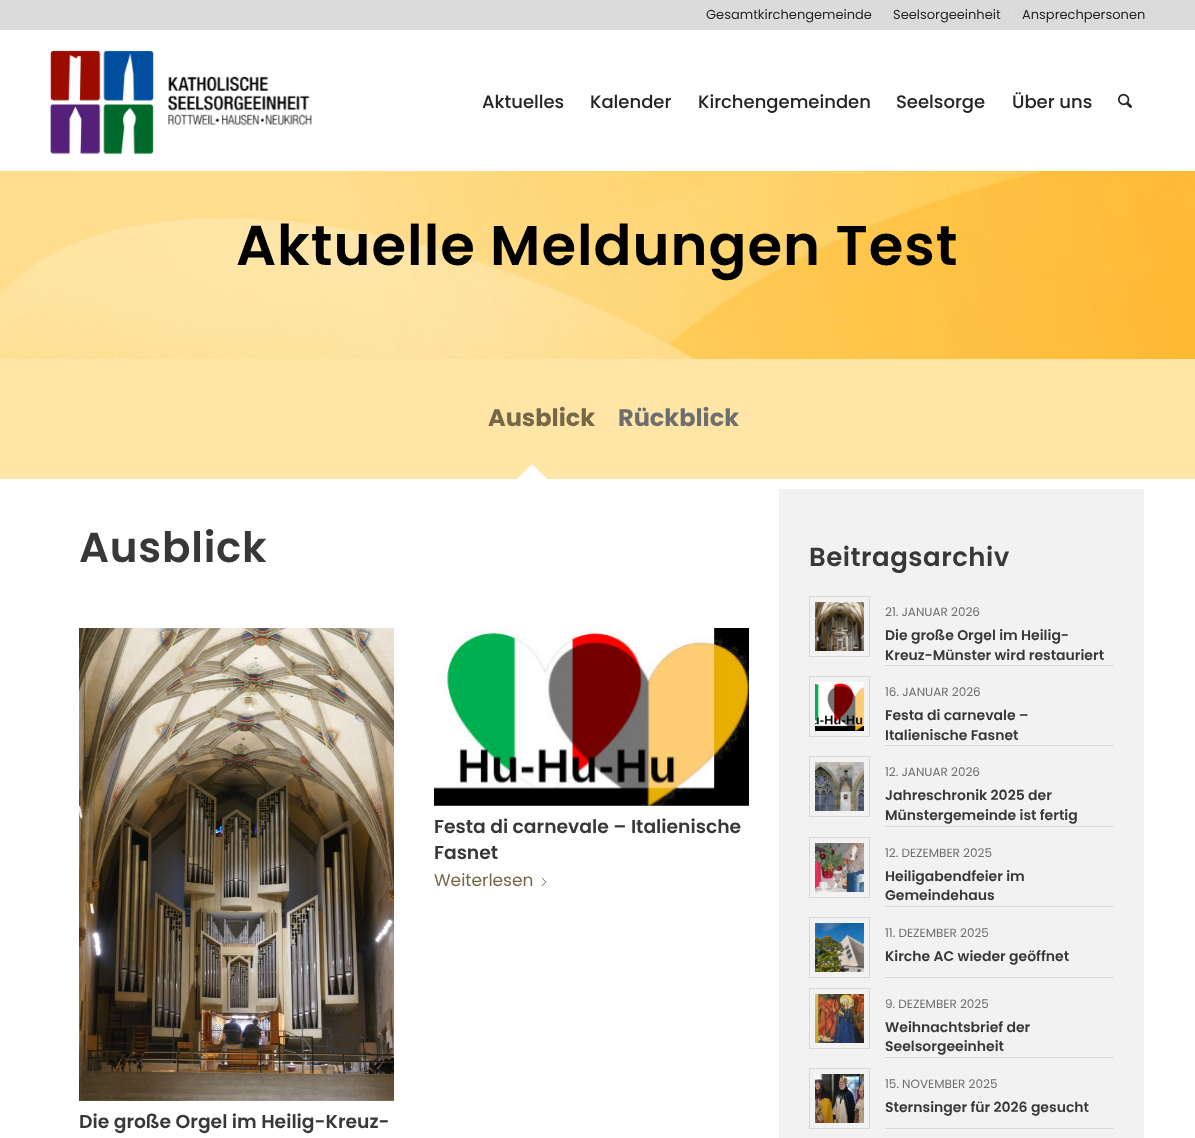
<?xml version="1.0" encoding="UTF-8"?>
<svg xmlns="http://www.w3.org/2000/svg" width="1195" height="1138">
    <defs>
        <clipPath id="clip1"><rect x="488" y="464" width="90" height="15"/></clipPath>
    </defs>
    <rect width="100%" height="100%" fill="#FFFFFF"/>
    <rect x="0" y="0" width="1195" height="30" fill="#DBDBDB"/>
    <rect x="882" y="10" width="1" height="10" fill="#E1E1E1"/>
    <text x="706" y="19" font-family="Poppins" font-size="13" fill="#242424">Gesamtkirchengemeinde</text>
    <rect x="1011" y="10" width="1" height="10" fill="#E1E1E1"/>
    <text x="893" y="19" font-family="Poppins" font-size="13" fill="#242424">Seelsorgeeinheit</text>
    <text x="1022" y="19" font-family="Poppins" font-size="13" fill="#242424">Ansprechpersonen</text>
    <image x="50" y="50" width="262" height="105" href="img_01.png"/>
    <text x="482" y="108" font-family="Poppins" font-size="18" font-weight="500" fill="#242424">Aktuelles</text>
    <text x="590" y="108" font-family="Poppins" font-size="18" font-weight="500" fill="#242424">Kalender</text>
    <text x="698" y="108" font-family="Poppins" font-size="18" font-weight="500" fill="#242424">Kirchengemeinden</text>
    <text x="896" y="108" font-family="Poppins" font-size="18" font-weight="500" fill="#242424">Seelsorge</text>
    <text x="1012" y="108" font-family="Poppins" font-size="18" font-weight="500" fill="#242424">Über uns</text>
    <image x="1118" y="93" width="14" height="16" href="img_02.png"/>
    <image x="0" y="171" width="1195" height="188" href="img_03.png"/>
    <text x="236" y="265" font-family="Poppins" font-size="56" font-weight="600" letter-spacing="1" fill="#000000">Aktuelle Meldungen Test</text>
    <rect x="0" y="359" width="1195" height="120" fill="#FFE6A6"/>
    <text x="488" y="426" font-family="Poppins" font-size="24" font-weight="700" fill="#756748">Ausblick</text>
    <g clip-path="url(#clip1)">
        <path d="M 532 464 L 568 499 L 532 535 L 497 499 Z" fill="#FFFFFF"/>
    </g>
    <text x="618" y="426" font-family="Poppins" font-size="24" font-weight="700" fill="#6D6E6F">Rückblick</text>
    <text x="79" y="562" font-family="Poppins" font-size="42" font-weight="600" letter-spacing="0.75" fill="#383838">Ausblick</text>
    <image x="434" y="628" width="315" height="178" href="img_04.png"/>
    <text font-family="Poppins" font-size="18.75" font-weight="600" fill="#383838">
        <tspan x="434" y="833">Festa di carnevale – Italienische</tspan>
        <tspan x="434" y="859">Fasnet</tspan>
    </text>
    <text x="434" y="886" font-family="Poppins" font-size="17" fill="#756748">Weiterlesen</text>
    <image x="541" y="877" width="6" height="10" href="img_05.png"/>
    <image x="79" y="628" width="315" height="473" href="img_06.png"/>
    <text x="79" y="1128" font-family="Poppins" font-size="18.75" font-weight="600" fill="#383838">Die große Orgel im Heilig-Kreuz-</text>
    <rect x="779" y="489" width="365" height="649" fill="#F2F2F2"/>
    <text x="809" y="566" font-family="Poppins" font-size="26" font-weight="600" letter-spacing="0.5" fill="#383838">Beitragsarchiv</text>
    <rect x="809.5" y="596.5" width="60" height="60" fill="none" stroke="#D9D9D9"/>
    <image x="815" y="602" width="49" height="49" href="img_07.png"/>
    <rect x="885" y="665" width="229" height="1" fill="#D9D9D9"/>
    <text x="885" y="616" font-family="Poppins" font-size="12" fill="#6D6E6F">21. JANUAR 2026</text>
    <text font-family="Poppins" font-size="14" font-weight="600" fill="#383838">
        <tspan x="885" y="640">Die große Orgel im Heilig-</tspan>
        <tspan x="885" y="660">Kreuz-Münster wird restauriert</tspan>
    </text>
    <rect x="809.5" y="676.5" width="60" height="60" fill="none" stroke="#D9D9D9"/>
    <image x="815" y="682" width="49" height="49" href="img_08.png"/>
    <rect x="885" y="745" width="229" height="1" fill="#D9D9D9"/>
    <text x="885" y="696" font-family="Poppins" font-size="12" fill="#6D6E6F">16. JANUAR 2026</text>
    <text font-family="Poppins" font-size="14" font-weight="600" fill="#383838">
        <tspan x="885" y="720">Festa di carnevale –</tspan>
        <tspan x="885" y="740">Italienische Fasnet</tspan>
    </text>
    <rect x="809.5" y="756.5" width="60" height="60" fill="none" stroke="#D9D9D9"/>
    <image x="815" y="762" width="49" height="49" href="img_09.png"/>
    <rect x="885" y="826" width="229" height="1" fill="#D9D9D9"/>
    <text x="885" y="776" font-family="Poppins" font-size="12" fill="#6D6E6F">12. JANUAR 2026</text>
    <text font-family="Poppins" font-size="14" font-weight="600" fill="#383838">
        <tspan x="885" y="800">Jahreschronik 2025 der</tspan>
        <tspan x="885" y="820">Münstergemeinde ist fertig</tspan>
    </text>
    <rect x="809.5" y="837.5" width="60" height="60" fill="none" stroke="#D9D9D9"/>
    <image x="815" y="843" width="49" height="49" href="img_10.png"/>
    <rect x="885" y="906" width="229" height="1" fill="#D9D9D9"/>
    <text x="885" y="857" font-family="Poppins" font-size="12" fill="#6D6E6F">12. DEZEMBER 2025</text>
    <text font-family="Poppins" font-size="14" font-weight="600" fill="#383838">
        <tspan x="885" y="881">Heiligabendfeier im</tspan>
        <tspan x="885" y="900">Gemeindehaus</tspan>
    </text>
    <rect x="809.5" y="917.5" width="60" height="60" fill="none" stroke="#D9D9D9"/>
    <image x="815" y="923" width="49" height="49" href="img_11.png"/>
    <rect x="885" y="977" width="229" height="1" fill="#D9D9D9"/>
    <text x="885" y="937" font-family="Poppins" font-size="12" fill="#6D6E6F">11. DEZEMBER 2025</text>
    <text x="885" y="961" font-family="Poppins" font-size="14" font-weight="600" fill="#383838">Kirche AC wieder geöffnet</text>
    <rect x="809.5" y="988.5" width="60" height="60" fill="none" stroke="#D9D9D9"/>
    <image x="815" y="994" width="49" height="49" href="img_12.png"/>
    <rect x="885" y="1057" width="229" height="1" fill="#D9D9D9"/>
    <text x="885" y="1008" font-family="Poppins" font-size="12" fill="#6D6E6F">9. DEZEMBER 2025</text>
    <text font-family="Poppins" font-size="14" font-weight="600" fill="#383838">
        <tspan x="885" y="1032">Weihnachtsbrief der</tspan>
        <tspan x="885" y="1051">Seelsorgeeinheit</tspan>
    </text>
    <rect x="809.5" y="1068.5" width="60" height="60" fill="none" stroke="#D9D9D9"/>
    <image x="815" y="1074" width="49" height="49" href="img_13.png"/>
    <rect x="885" y="1128" width="229" height="1" fill="#D9D9D9"/>
    <text x="885" y="1088" font-family="Poppins" font-size="12" fill="#6D6E6F">15. NOVEMBER 2025</text>
    <text x="885" y="1112" font-family="Poppins" font-size="14" font-weight="600" fill="#383838">Sternsinger für 2026 gesucht</text>
</svg>
